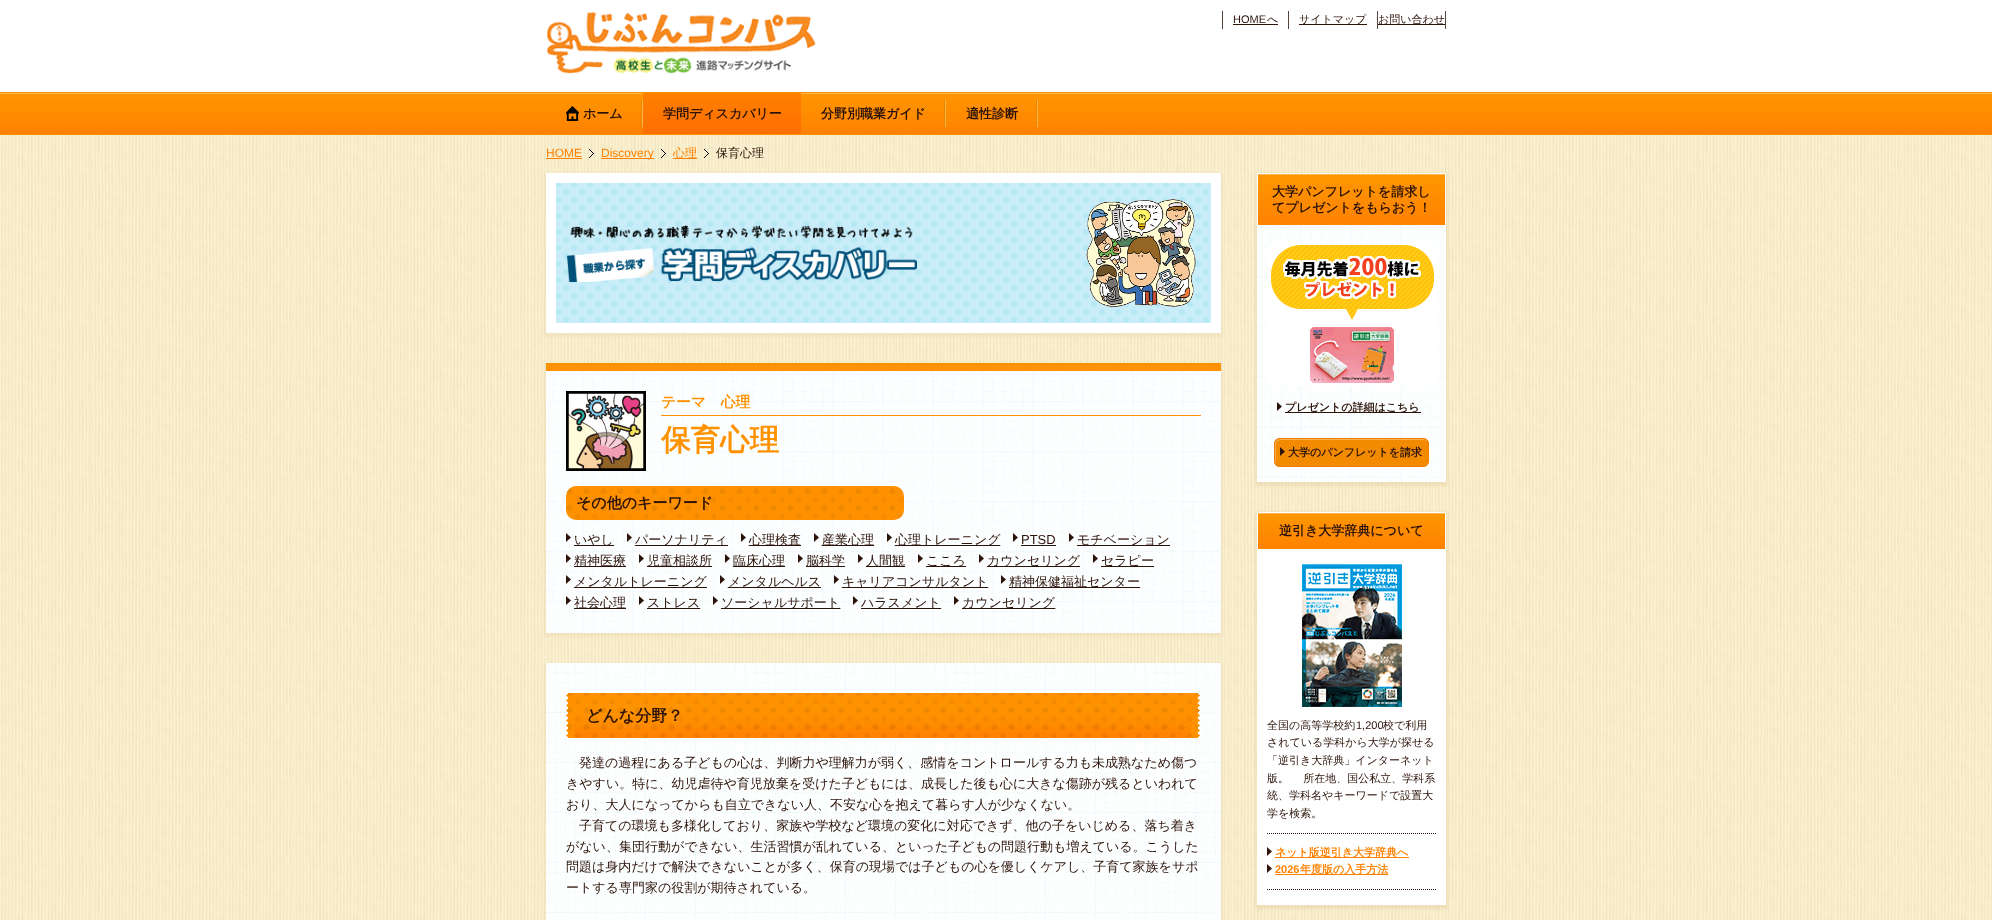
<?xml version="1.0" encoding="UTF-8"?>
<svg xmlns="http://www.w3.org/2000/svg" width="1992" height="920">
    <defs>
        <linearGradient id="g1" gradientUnits="userSpaceOnUse" x1="996" y1="92" x2="996" y2="134"><stop offset="0" stop-color="#FF9700"/><stop offset="1" stop-color="#FF8100"/></linearGradient>
        <linearGradient id="g2" gradientUnits="userSpaceOnUse" x1="722" y1="93" x2="722" y2="134"><stop offset="0" stop-color="#FF8000"/><stop offset="1" stop-color="#FF6E00"/></linearGradient>
        <filter id="blur1" x="-50%" y="-200%" width="200%" height="500%"><feGaussianBlur stdDeviation="1.5"/></filter>
        <linearGradient id="g3" gradientUnits="userSpaceOnUse" x1="1352" y1="174" x2="1352" y2="225"><stop offset="0" stop-color="#FF9700"/><stop offset="1" stop-color="#FF8100"/></linearGradient>
        <linearGradient id="g4" gradientUnits="userSpaceOnUse" x1="1352" y1="513" x2="1352" y2="549"><stop offset="0" stop-color="#FF9700"/><stop offset="1" stop-color="#FF8100"/></linearGradient>
    </defs>
    <rect width="100%" height="100%" fill="#FFFFFF"/>
    <image x="0" y="135" width="1992" height="785" href="img_01.png"/>
    <image x="547" y="12" width="269" height="62" href="img_02.png"/>
    <rect x="1288" y="11" width="1" height="18" fill="#57443A"/>
    <rect x="1222" y="11" width="1" height="18" fill="#57443A"/>
    <text x="1233" y="23" font-family="Liberation Sans" font-size="11" fill="#2C1309">HOME</text>
    <text x="1267" y="23" font-family="WenQuanYi Zen Hei" font-size="11" font-weight="500" fill="#2C1309">へ</text>
    <rect x="1233" y="24" width="45" height="1" fill="#2C1309"/>
    <rect x="1377" y="11" width="1" height="18" fill="#57443A"/>
    <rect x="1299" y="24" width="68" height="1" fill="#2C1309"/>
    <text x="1299" y="23" font-family="WenQuanYi Zen Hei" font-size="11" font-weight="500" fill="#2C1309">サイトマップ</text>
    <rect x="1445" y="11" width="1" height="18" fill="#57443A"/>
    <rect x="1378" y="24" width="67" height="1" fill="#2C1309"/>
    <text x="1378" y="23" font-family="WenQuanYi Zen Hei" font-size="11" font-weight="500" fill="#2C1309">お問い合わせ</text>
    <rect x="0" y="94" width="1992" height="40" fill="url(#g1)"/>
    <rect x="0" y="134" width="1992" height="1" fill="#FF9200"/>
    <rect x="0" y="93" width="1992" height="1" fill="#FFB64D"/>
    <rect x="0" y="92" width="1992" height="1" fill="#FF9200"/>
    <image x="641" y="100" width="2" height="27" href="img_03.png"/>
    <image x="566" y="106" width="13" height="15" href="img_04.png"/>
    <text x="583" y="118" font-family="WenQuanYi Zen Hei" font-size="13" font-weight="700" fill="#2C1309">ホーム</text>
    <rect x="643" y="93" width="158" height="41" fill="url(#g2)"/>
    <text x="663" y="118" font-family="WenQuanYi Zen Hei" font-size="13" font-weight="700" fill="#2C1309">学問ディスカバリー</text>
    <image x="944" y="100" width="2" height="27" href="img_03.png"/>
    <text x="821" y="118" font-family="WenQuanYi Zen Hei" font-size="13" font-weight="700" fill="#2C1309">分野別職業ガイド</text>
    <image x="1036" y="100" width="2" height="27" href="img_03.png"/>
    <text x="966" y="118" font-family="WenQuanYi Zen Hei" font-size="13" font-weight="700" fill="#2C1309">適性診断</text>
    <text x="546" y="157" font-family="Liberation Sans" font-size="12" fill="#FF8100">HOME</text>
    <rect x="546" y="158" width="36" height="1" fill="#FF8100"/>
    <image x="589" y="149" width="5" height="9" href="img_05.png"/>
    <rect x="601" y="158" width="53" height="1" fill="#FF8100"/>
    <text x="601" y="157" font-family="Liberation Sans" font-size="12" fill="#FF8100">Discovery</text>
    <image x="661" y="149" width="5" height="9" href="img_06.png"/>
    <rect x="673" y="158" width="24" height="1" fill="#FF8100"/>
    <text x="673" y="157" font-family="WenQuanYi Zen Hei" font-size="12" font-weight="500" fill="#FF8100">心理</text>
    <image x="704" y="149" width="5" height="9" href="img_07.png"/>
    <text x="716" y="157" font-family="WenQuanYi Zen Hei" font-size="12" font-weight="500" fill="#2C1309">保育心理</text>
    <rect x="544" y="173" width="679" height="164" fill="#E8CFA5" fill-opacity="0.3" filter="url(#blur1)"/>
    <image x="556" y="183" width="655" height="140" href="img_08.png"/>
    <rect x="551" y="178" width="665" height="150" fill="none" stroke="#FFFFFF" stroke-width="10"/>
    <image x="567" y="225" width="350" height="57" href="img_09.png"/>
    <image x="1086" y="199" width="110" height="108" href="img_10.png"/>
    <rect x="544" y="363" width="679" height="274" fill="#E8CFA5" fill-opacity="0.3" filter="url(#blur1)"/>
    <image x="546" y="371" width="675" height="262" href="img_11.png"/>
    <rect x="546" y="363" width="675" height="8" fill="#FF9200"/>
    <image x="566" y="391" width="80" height="80" href="img_12.png"/>
    <rect x="661" y="415" width="540" height="1" fill="#FF9200"/>
    <text x="661" y="407" font-family="WenQuanYi Zen Hei" font-size="14.75" font-weight="700" fill="#FF9200">テーマ　心理</text>
    <text x="661" y="450" font-family="WenQuanYi Zen Hei" font-size="29.5" font-weight="700" fill="#FF9200">保育心理</text>
    <image x="566" y="486" width="338" height="34" href="img_13.png"/>
    <text x="576" y="508" font-family="WenQuanYi Zen Hei" font-size="15" font-weight="700" fill="#2C1309">その他のキーワード</text>
    <image x="566" y="533" width="5" height="9" href="img_14.png"/>
    <rect x="574" y="545" width="40" height="1" fill="#2C1309"/>
    <text x="574" y="544" font-family="WenQuanYi Zen Hei" font-size="13" font-weight="500" fill="#2C1309">いやし</text>
    <image x="627" y="533" width="8" height="13" href="img_15.png"/>
    <rect x="635" y="545" width="93" height="1" fill="#2C1309"/>
    <text x="635" y="544" font-family="WenQuanYi Zen Hei" font-size="13" font-weight="500" fill="#2C1309">パーソナリティ</text>
    <image x="741" y="533" width="8" height="13" href="img_16.png"/>
    <rect x="749" y="545" width="52" height="1" fill="#2C1309"/>
    <text x="749" y="544" font-family="WenQuanYi Zen Hei" font-size="13" font-weight="500" fill="#2C1309">心理検査</text>
    <image x="814" y="533" width="8" height="13" href="img_17.png"/>
    <rect x="822" y="545" width="52" height="1" fill="#2C1309"/>
    <text x="822" y="544" font-family="WenQuanYi Zen Hei" font-size="13" font-weight="500" fill="#2C1309">産業心理</text>
    <image x="887" y="533" width="114" height="13" href="img_18.png"/>
    <text x="895" y="544" font-family="WenQuanYi Zen Hei" font-size="13" font-weight="500" fill="#2C1309">心理トレーニング</text>
    <image x="1013" y="533" width="5" height="9" href="img_19.png"/>
    <text x="1021" y="544" font-family="Liberation Sans" font-size="13" fill="#2C1309">PTSD</text>
    <rect x="1021" y="545" width="35" height="1" fill="#2C1309"/>
    <image x="1069" y="533" width="8" height="13" href="img_20.png"/>
    <rect x="1077" y="545" width="93" height="1" fill="#2C1309"/>
    <text x="1077" y="544" font-family="WenQuanYi Zen Hei" font-size="13" font-weight="500" fill="#2C1309">モチベーション</text>
    <image x="566" y="554" width="60" height="13" href="img_21.png"/>
    <text x="574" y="565" font-family="WenQuanYi Zen Hei" font-size="13" font-weight="500" fill="#2C1309">精神医療</text>
    <image x="639" y="554" width="73" height="13" href="img_22.png"/>
    <text x="647" y="565" font-family="WenQuanYi Zen Hei" font-size="13" font-weight="500" fill="#2C1309">児童相談所</text>
    <image x="725" y="554" width="60" height="13" href="img_23.png"/>
    <text x="733" y="565" font-family="WenQuanYi Zen Hei" font-size="13" font-weight="500" fill="#2C1309">臨床心理</text>
    <image x="798" y="554" width="47" height="13" href="img_24.png"/>
    <text x="806" y="565" font-family="WenQuanYi Zen Hei" font-size="13" font-weight="500" fill="#2C1309">脳科学</text>
    <image x="858" y="554" width="47" height="13" href="img_25.png"/>
    <text x="866" y="565" font-family="WenQuanYi Zen Hei" font-size="13" font-weight="500" fill="#2C1309">人間観</text>
    <image x="918" y="554" width="5" height="9" href="img_26.png"/>
    <rect x="926" y="566" width="40" height="1" fill="#2C1309"/>
    <text x="926" y="565" font-family="WenQuanYi Zen Hei" font-size="13" font-weight="500" fill="#2C1309">こころ</text>
    <image x="979" y="554" width="102" height="13" href="img_27.png"/>
    <text x="987" y="565" font-family="WenQuanYi Zen Hei" font-size="13" font-weight="500" fill="#2C1309">カウンセリング</text>
    <image x="1093" y="554" width="5" height="9" href="img_28.png"/>
    <rect x="1101" y="566" width="53" height="1" fill="#2C1309"/>
    <text x="1101" y="565" font-family="WenQuanYi Zen Hei" font-size="13" font-weight="500" fill="#2C1309">セラピー</text>
    <image x="566" y="575" width="5" height="9" href="img_29.png"/>
    <rect x="574" y="587" width="133" height="1" fill="#2C1309"/>
    <text x="574" y="586" font-family="WenQuanYi Zen Hei" font-size="13" font-weight="500" fill="#2C1309">メンタルトレーニング</text>
    <image x="720" y="575" width="8" height="13" href="img_30.png"/>
    <rect x="728" y="587" width="93" height="1" fill="#2C1309"/>
    <text x="728" y="586" font-family="WenQuanYi Zen Hei" font-size="13" font-weight="500" fill="#2C1309">メンタルヘルス</text>
    <image x="834" y="575" width="155" height="13" href="img_31.png"/>
    <text x="842" y="586" font-family="WenQuanYi Zen Hei" font-size="13" font-weight="500" fill="#2C1309">キャリアコンサルタント</text>
    <image x="1001" y="575" width="140" height="13" href="img_32.png"/>
    <rect x="1009" y="587" width="1" height="1" fill="#2C1309"/>
    <text x="1009" y="586" font-family="WenQuanYi Zen Hei" font-size="13" font-weight="500" fill="#2C1309">精神保健福祉センター</text>
    <image x="566" y="596" width="60" height="13" href="img_33.png"/>
    <text x="574" y="607" font-family="WenQuanYi Zen Hei" font-size="13" font-weight="500" fill="#2C1309">社会心理</text>
    <image x="639" y="596" width="62" height="13" href="img_34.png"/>
    <text x="647" y="607" font-family="WenQuanYi Zen Hei" font-size="13" font-weight="500" fill="#2C1309">ストレス</text>
    <image x="713" y="596" width="128" height="13" href="img_35.png"/>
    <text x="721" y="607" font-family="WenQuanYi Zen Hei" font-size="13" font-weight="500" fill="#2C1309">ソーシャルサポート</text>
    <rect x="721" y="608" width="1" height="1" fill="#2C1309"/>
    <image x="853" y="596" width="89" height="13" href="img_36.png"/>
    <rect x="861" y="608" width="1" height="1" fill="#2C1309"/>
    <text x="861" y="607" font-family="WenQuanYi Zen Hei" font-size="13" font-weight="500" fill="#2C1309">ハラスメント</text>
    <image x="954" y="596" width="102" height="13" href="img_37.png"/>
    <text x="962" y="607" font-family="WenQuanYi Zen Hei" font-size="13" font-weight="500" fill="#2C1309">カウンセリング</text>
    <rect x="962" y="608" width="1" height="1" fill="#2C1309"/>
    <rect x="544" y="663" width="679" height="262" fill="#E8CFA5" fill-opacity="0.3" filter="url(#blur1)"/>
    <image x="546" y="663" width="675" height="257" href="img_38.png"/>
    <image x="566" y="693" width="634" height="45" href="img_39.png"/>
    <text x="586" y="721" font-family="WenQuanYi Zen Hei" font-size="16" font-weight="700" fill="#2C1309">どんな分野？</text>
    <text x="579" y="767" font-family="WenQuanYi Zen Hei" font-size="13" font-weight="500" fill="#2C1309">発達の過程にある子どもの心は、判断力や理解力が弱く、感情をコントロールする力も未成熟なため傷つ</text>
    <text font-family="WenQuanYi Zen Hei" font-size="13" font-weight="500" fill="#2C1309">
        <tspan x="566" y="788">きやすい。特に、幼児虐待や育児放棄を受けた子どもには、成長した後も心に大きな傷跡が残るといわれて</tspan>
        <tspan x="566" y="809">おり、大人になってからも自立できない人、不安な心を抱えて暮らす人が少なくない。</tspan>
    </text>
    <text x="579" y="830" font-family="WenQuanYi Zen Hei" font-size="13" font-weight="500" fill="#2C1309">子育ての環境も多様化しており、家族や学校など環境の変化に対応できず、他の子をいじめる、落ち着き</text>
    <text font-family="WenQuanYi Zen Hei" font-size="13" font-weight="500" fill="#2C1309">
        <tspan x="566" y="851">がない、集団行動ができない、生活習慣が乱れている、といった子どもの問題行動も増えている。こうした</tspan>
        <tspan x="566" y="871">問題は身内だけで解決できないことが多く、保育の現場では子どもの心を優しくケアし、子育て家族をサポ</tspan>
        <tspan x="566" y="892">ートする専門家の役割が期待されている。</tspan>
    </text>
    <rect x="1255" y="173" width="193" height="313" fill="#E8CFA5" fill-opacity="0.51" filter="url(#blur1)"/>
    <image x="1257" y="173" width="189" height="309" href="img_40.png"/>
    <rect x="1258" y="175" width="187" height="50" fill="url(#g3)"/>
    <rect x="1258" y="174" width="187" height="1" fill="#FFB64D"/>
    <text font-family="WenQuanYi Zen Hei" font-size="13" font-weight="700" fill="#2C1309">
        <tspan x="1272" y="196">大学パンフレットを請求し</tspan>
        <tspan x="1272" y="212">てプレゼントをもらおう！</tspan>
    </text>
    <image x="1268" y="245" width="168" height="142" href="img_41.png"/>
    <image x="1277" y="402" width="5" height="9" href="img_42.png"/>
    <rect x="1285" y="412" width="136" height="1" fill="#2C1309"/>
    <text x="1285" y="411" font-family="WenQuanYi Zen Hei" font-size="11" font-weight="700" fill="#2C1309">プレゼントの詳細はこちら</text>
    <image x="1274" y="438" width="155" height="29" href="img_43.png"/>
    <path d="M 1281 440 H 1424 L 1427 441 C 1426 440 1424 439 1423 439 H 1280 C 1277 439 1275 441 1275 444 V 461 C 1275 462 1276 464 1277 465 C 1275 462 1276 457 1276 454 C 1276 449 1274 440 1281 440 Z" fill="#FFFFFF" fill-opacity="0.3"/>
    <rect x="1274.5" y="438.5" width="154" height="28" rx="5.5" fill="none" stroke="#F57E00"/>
    <image x="1280" y="447" width="5" height="9" href="img_44.png"/>
    <text x="1288" y="456" font-family="WenQuanYi Zen Hei" font-size="11" font-weight="700" fill="#2C1309">大学のパンフレットを請求</text>
    <rect x="1255" y="512" width="193" height="397" fill="#E8CFA5" fill-opacity="0.51" filter="url(#blur1)"/>
    <rect x="1257" y="512" width="189" height="393" fill="#FFFFFF"/>
    <rect x="1258" y="514" width="187" height="35" fill="url(#g4)"/>
    <rect x="1258" y="513" width="187" height="1" fill="#FFB64D"/>
    <text x="1279" y="535" font-family="WenQuanYi Zen Hei" font-size="13" font-weight="700" fill="#2C1309">逆引き大学辞典について</text>
    <image x="1302" y="564" width="100" height="143" href="img_45.png"/>
    <text x="1267" y="729" font-family="WenQuanYi Zen Hei" font-size="11" font-weight="500" fill="#2C1309">全国の高等学校約</text>
    <text x="1356" y="729" font-family="Liberation Sans" font-size="11" fill="#2C1309">1,200</text>
    <text x="1383" y="729" font-family="WenQuanYi Zen Hei" font-size="11" font-weight="500" fill="#2C1309">校で利用</text>
    <text font-family="WenQuanYi Zen Hei" font-size="11" font-weight="500" fill="#2C1309">
        <tspan x="1267" y="746">されている学科から大学が探せる</tspan>
        <tspan x="1267" y="764">「逆引き大辞典」インターネット</tspan>
        <tspan x="1267" y="782">版。 　所在地、国公私立、学科系</tspan>
        <tspan x="1267" y="799">統、学科名やキーワードで設置大</tspan>
        <tspan x="1267" y="817">学を検索。</tspan>
    </text>
    <path d="M 1267 833.5 H 1436" fill="none" stroke="#2C1309" stroke-dasharray="1 1"/>
    <path d="M 1267 889.5 H 1436" fill="none" stroke="#2C1309" stroke-dasharray="1 1"/>
    <image x="1267" y="847" width="5" height="9" href="img_46.png"/>
    <rect x="1275" y="857" width="134" height="1" fill="#FE8100"/>
    <text x="1275" y="856" font-family="WenQuanYi Zen Hei" font-size="11" font-weight="700" fill="#FF8100">ネット版逆引き大学辞典へ</text>
    <image x="1267" y="864" width="122" height="11" href="img_47.png"/>
    <text x="1275" y="873" font-family="Liberation Sans" font-size="11" font-weight="700" fill="#FF8100">2026</text>
    <text x="1300" y="873" font-family="WenQuanYi Zen Hei" font-size="11" font-weight="700" fill="#FF8100">年度版の入手方法</text>
</svg>
